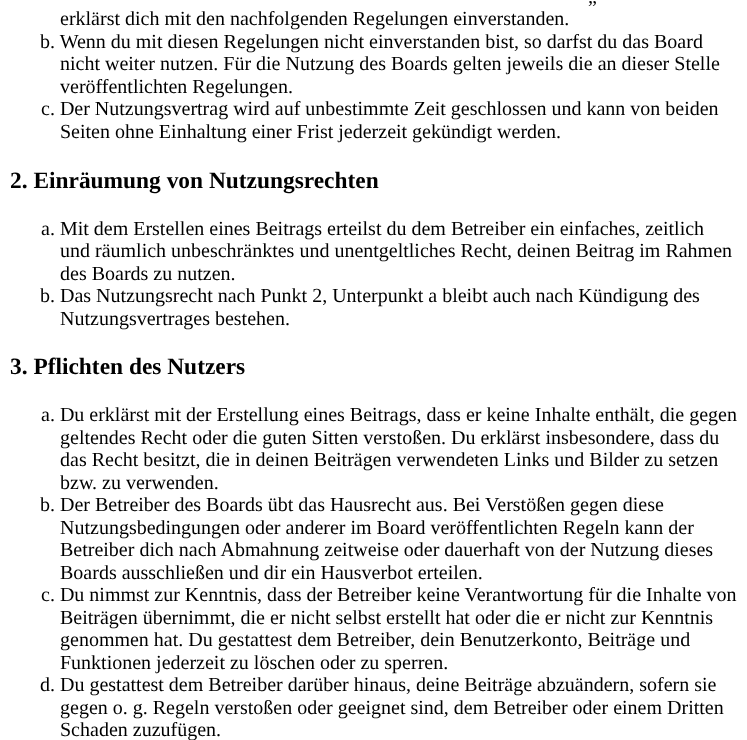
<?xml version="1.0" encoding="UTF-8"?>
<svg xmlns="http://www.w3.org/2000/svg" width="747" height="740">
    <rect width="100%" height="100%" fill="#FFFFFF"/>
    <text x="588" y="3" font-family="Liberation Serif" font-size="20" fill="#000000">„</text>
    <text x="60" y="25" font-family="Liberation Serif" font-size="20" fill="#000000">erklärst dich mit den nachfolgenden Regelungen einverstanden.</text>
    <text x="40" y="48" font-family="Liberation Serif" font-size="20" fill="#000000">b. Wenn du mit diesen Regelungen nicht einverstanden bist, so darfst du das Board</text>
    <text font-family="Liberation Serif" font-size="20" fill="#000000">
        <tspan x="60" y="70">nicht weiter nutzen. Für die Nutzung des Boards gelten jeweils die an dieser Stelle</tspan>
        <tspan x="60" y="93">veröffentlichten Regelungen.</tspan>
    </text>
    <text x="41" y="115" font-family="Liberation Serif" font-size="20" fill="#000000">c. Der Nutzungsvertrag wird auf unbestimmte Zeit geschlossen und kann von beiden</text>
    <text x="60" y="138" font-family="Liberation Serif" font-size="20" fill="#000000">Seiten ohne Einhaltung einer Frist jederzeit gekündigt werden.</text>
    <text x="10" y="188" font-family="Liberation Serif" font-size="23.4" font-weight="700" fill="#000000">2. Einräumung von Nutzungsrechten</text>
    <text x="41" y="235" font-family="Liberation Serif" font-size="20" fill="#000000">a. Mit dem Erstellen eines Beitrags erteilst du dem Betreiber ein einfaches, zeitlich</text>
    <text font-family="Liberation Serif" font-size="20" fill="#000000">
        <tspan x="60" y="257">und räumlich unbeschränktes und unentgeltliches Recht, deinen Beitrag im Rahmen</tspan>
        <tspan x="60" y="280">des Boards zu nutzen.</tspan>
    </text>
    <text x="40" y="302" font-family="Liberation Serif" font-size="20" fill="#000000">b. Das Nutzungsrecht nach Punkt 2, Unterpunkt a bleibt auch nach Kündigung des</text>
    <text x="60" y="325" font-family="Liberation Serif" font-size="20" fill="#000000">Nutzungsvertrages bestehen.</text>
    <text x="10" y="374" font-family="Liberation Serif" font-size="23.4" font-weight="700" fill="#000000">3. Pflichten des Nutzers</text>
    <text x="41" y="421" font-family="Liberation Serif" font-size="20" fill="#000000">a. Du erklärst mit der Erstellung eines Beitrags, dass er keine Inhalte enthält, die gegen</text>
    <text font-family="Liberation Serif" font-size="20" fill="#000000">
        <tspan x="60" y="444">geltendes Recht oder die guten Sitten verstoßen. Du erklärst insbesondere, dass du</tspan>
        <tspan x="60" y="466">das Recht besitzt, die in deinen Beiträgen verwendeten Links und Bilder zu setzen</tspan>
        <tspan x="60" y="489">bzw. zu verwenden.</tspan>
    </text>
    <text x="40" y="511" font-family="Liberation Serif" font-size="20" fill="#000000">b. Der Betreiber des Boards übt das Hausrecht aus. Bei Verstößen gegen diese</text>
    <text font-family="Liberation Serif" font-size="20" fill="#000000">
        <tspan x="60" y="534">Nutzungsbedingungen oder anderer im Board veröffentlichten Regeln kann der</tspan>
        <tspan x="60" y="556">Betreiber dich nach Abmahnung zeitweise oder dauerhaft von der Nutzung dieses</tspan>
        <tspan x="60" y="579">Boards ausschließen und dir ein Hausverbot erteilen.</tspan>
    </text>
    <text x="41" y="601" font-family="Liberation Serif" font-size="20" fill="#000000">c. Du nimmst zur Kenntnis, dass der Betreiber keine Verantwortung für die Inhalte von</text>
    <text font-family="Liberation Serif" font-size="20" fill="#000000">
        <tspan x="60" y="624">Beiträgen übernimmt, die er nicht selbst erstellt hat oder die er nicht zur Kenntnis</tspan>
        <tspan x="60" y="646">genommen hat. Du gestattest dem Betreiber, dein Benutzerkonto, Beiträge und</tspan>
        <tspan x="60" y="669">Funktionen jederzeit zu löschen oder zu sperren.</tspan>
    </text>
    <text x="40" y="691" font-family="Liberation Serif" font-size="20" fill="#000000">d. Du gestattest dem Betreiber darüber hinaus, deine Beiträge abzuändern, sofern sie</text>
    <text font-family="Liberation Serif" font-size="20" fill="#000000">
        <tspan x="60" y="714">gegen o. g. Regeln verstoßen oder geeignet sind, dem Betreiber oder einem Dritten</tspan>
        <tspan x="60" y="736">Schaden zuzufügen.</tspan>
    </text>
</svg>
